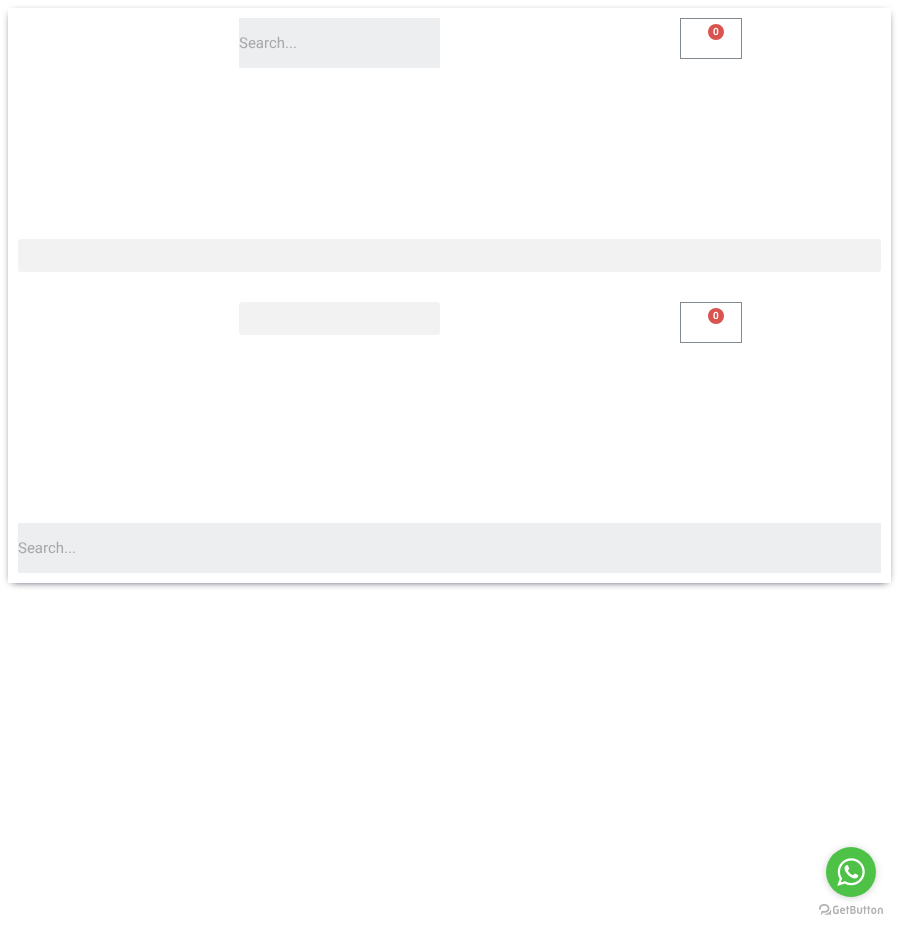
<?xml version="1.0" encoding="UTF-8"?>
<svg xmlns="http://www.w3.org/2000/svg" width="899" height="931">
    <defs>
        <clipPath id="clip1"><path d="M 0 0 H 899 V 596 H 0 Z M 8 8 H 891 V 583 H 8 Z" clip-rule="evenodd"/></clipPath>
        <filter id="blur1" x="-50%" y="-200%" width="200%" height="500%"><feGaussianBlur stdDeviation="4.5"/></filter>
        <filter id="blur2" x="-50%" y="-200%" width="200%" height="500%"><feGaussianBlur stdDeviation="3.5"/></filter>
    </defs>
    <rect width="100%" height="100%" fill="#FFFFFF"/>
    <g clip-path="url(#clip1)">
        <rect x="12" y="14" width="875" height="567" fill="#06091E" filter="url(#blur1)"/>
    </g>
    <rect x="680.5" y="18.5" width="61" height="40" fill="none" stroke="#818A91"/>
    <circle cx="716" cy="32" r="8" fill="#D9534F"/>
    <text x="713" y="35" font-family="Roboto" font-size="10" font-weight="600" fill="#FFFFFF">0</text>
    <rect x="239" y="18" width="201" height="50" fill="#ECEEEF"/>
    <text x="239" y="48" font-family="Roboto" font-size="15" fill="#A8A8A9">Search...</text>
    <rect x="18" y="239" width="863" height="33" rx="3" fill="#F2F2F2"/>
    <rect x="239" y="302" width="201" height="33" rx="3" fill="#F2F2F2"/>
    <rect x="680.5" y="302.5" width="61" height="40" fill="none" stroke="#818A91"/>
    <circle cx="716" cy="316" r="8" fill="#D9534F"/>
    <text x="713" y="319" font-family="Roboto" font-size="10" font-weight="600" fill="#FFFFFF">0</text>
    <rect x="18" y="523" width="863" height="50" fill="#ECEEEF"/>
    <text x="18" y="553" font-family="Roboto" font-size="15" fill="#A8A8A9">Search...</text>
    <image x="819" y="904" width="64" height="11" href="img_02.png"/>
    <rect x="826" y="848" width="50" height="50" rx="25" fill="#888888" fill-opacity="0.4" filter="url(#blur2)"/>
    <circle cx="851" cy="872" r="25" fill="#4DC247"/>
    <image x="837" y="858" width="28" height="28" href="img_01.png"/>
</svg>
